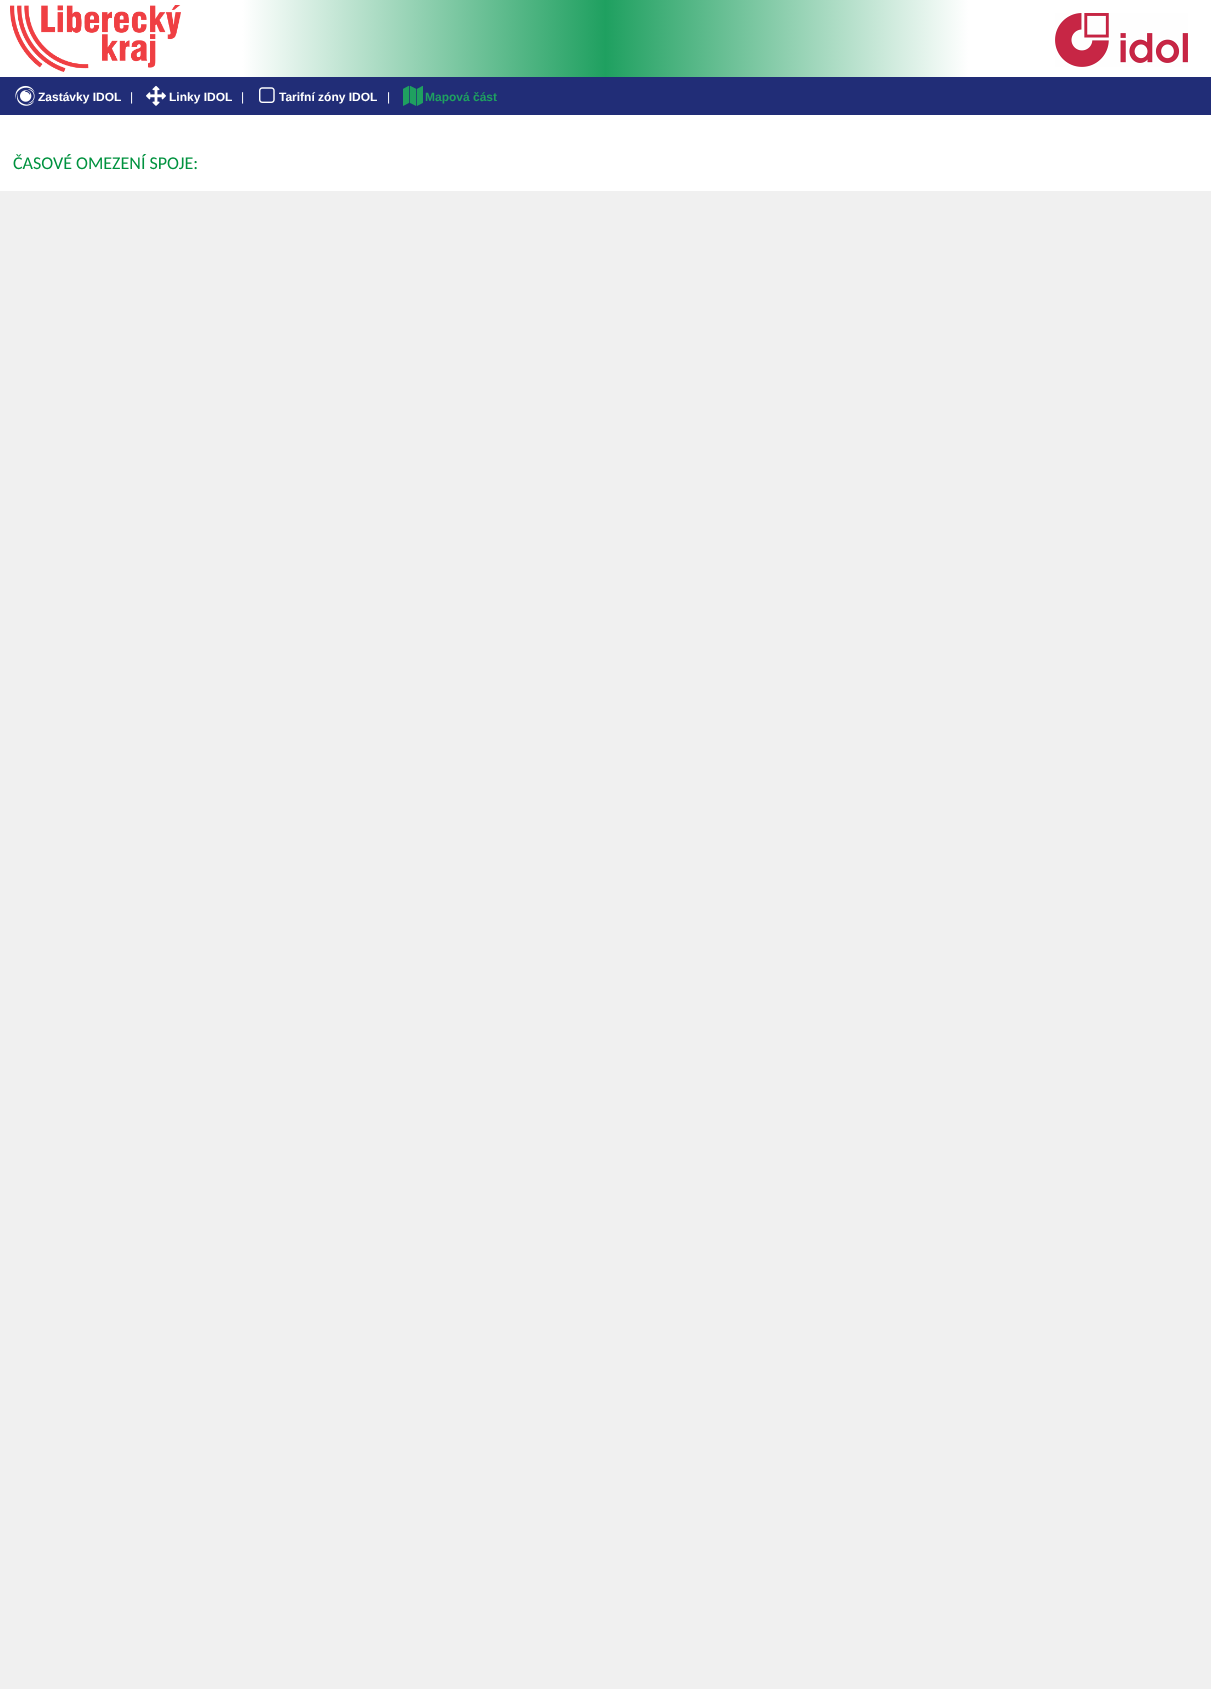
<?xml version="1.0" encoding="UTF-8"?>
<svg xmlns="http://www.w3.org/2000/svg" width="1211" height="1689">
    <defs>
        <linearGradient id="g1" gradientUnits="userSpaceOnUse" x1="0" y1="51" x2="1211" y2="51"><stop offset="0" stop-color="#FFFFFF"/><stop offset="0.2" stop-color="#FFFFFF"/><stop offset="0.5" stop-color="#1FA060"/><stop offset="0.8" stop-color="#FFFFFF"/><stop offset="1" stop-color="#FFFFFF"/></linearGradient>
    </defs>
    <rect width="100%" height="100%" fill="#F0F0F0"/>
    <rect x="0" y="0" width="1211" height="77" fill="url(#g1)"/>
    <image x="10" y="5" width="171" height="67" href="img_01.png"/>
    <image x="1055" y="13" width="133" height="54" href="img_02.png"/>
    <rect x="0" y="77" width="1211" height="38" fill="#212D77"/>
    <image x="15" y="85" width="20" height="21" href="img_03.png"/>
    <text x="38" y="101" font-family="Liberation Sans" font-size="12" font-weight="700" fill="#FFFFFF">Zastávky IDOL</text>
    <text x="130" y="101" font-family="Liberation Sans" font-size="12" fill="#FFFFFF">|</text>
    <image x="146" y="85" width="20" height="21" href="img_04.png"/>
    <text x="169" y="101" font-family="Liberation Sans" font-size="12" font-weight="700" fill="#FFFFFF">Linky IDOL</text>
    <text x="241" y="101" font-family="Liberation Sans" font-size="12" fill="#FFFFFF">|</text>
    <image x="259" y="87" width="16" height="16" href="img_05.png"/>
    <text x="279" y="101" font-family="Liberation Sans" font-size="12" font-weight="700" fill="#FFFFFF">Tarifní zóny IDOL</text>
    <text x="387" y="101" font-family="Liberation Sans" font-size="12" fill="#FFFFFF">|</text>
    <image x="403" y="85" width="20" height="21" href="img_06.png"/>
    <text x="425" y="101" font-family="Liberation Sans" font-size="12" font-weight="700" fill="#1FA060">Mapová část</text>
    <rect x="0" y="115" width="1211" height="76" fill="#FFFFFF"/>
    <text x="13" y="169" font-family="Carlito" font-size="18" fill="#00923F">ČASOVÉ OMEZENÍ SPOJE:</text>
</svg>
